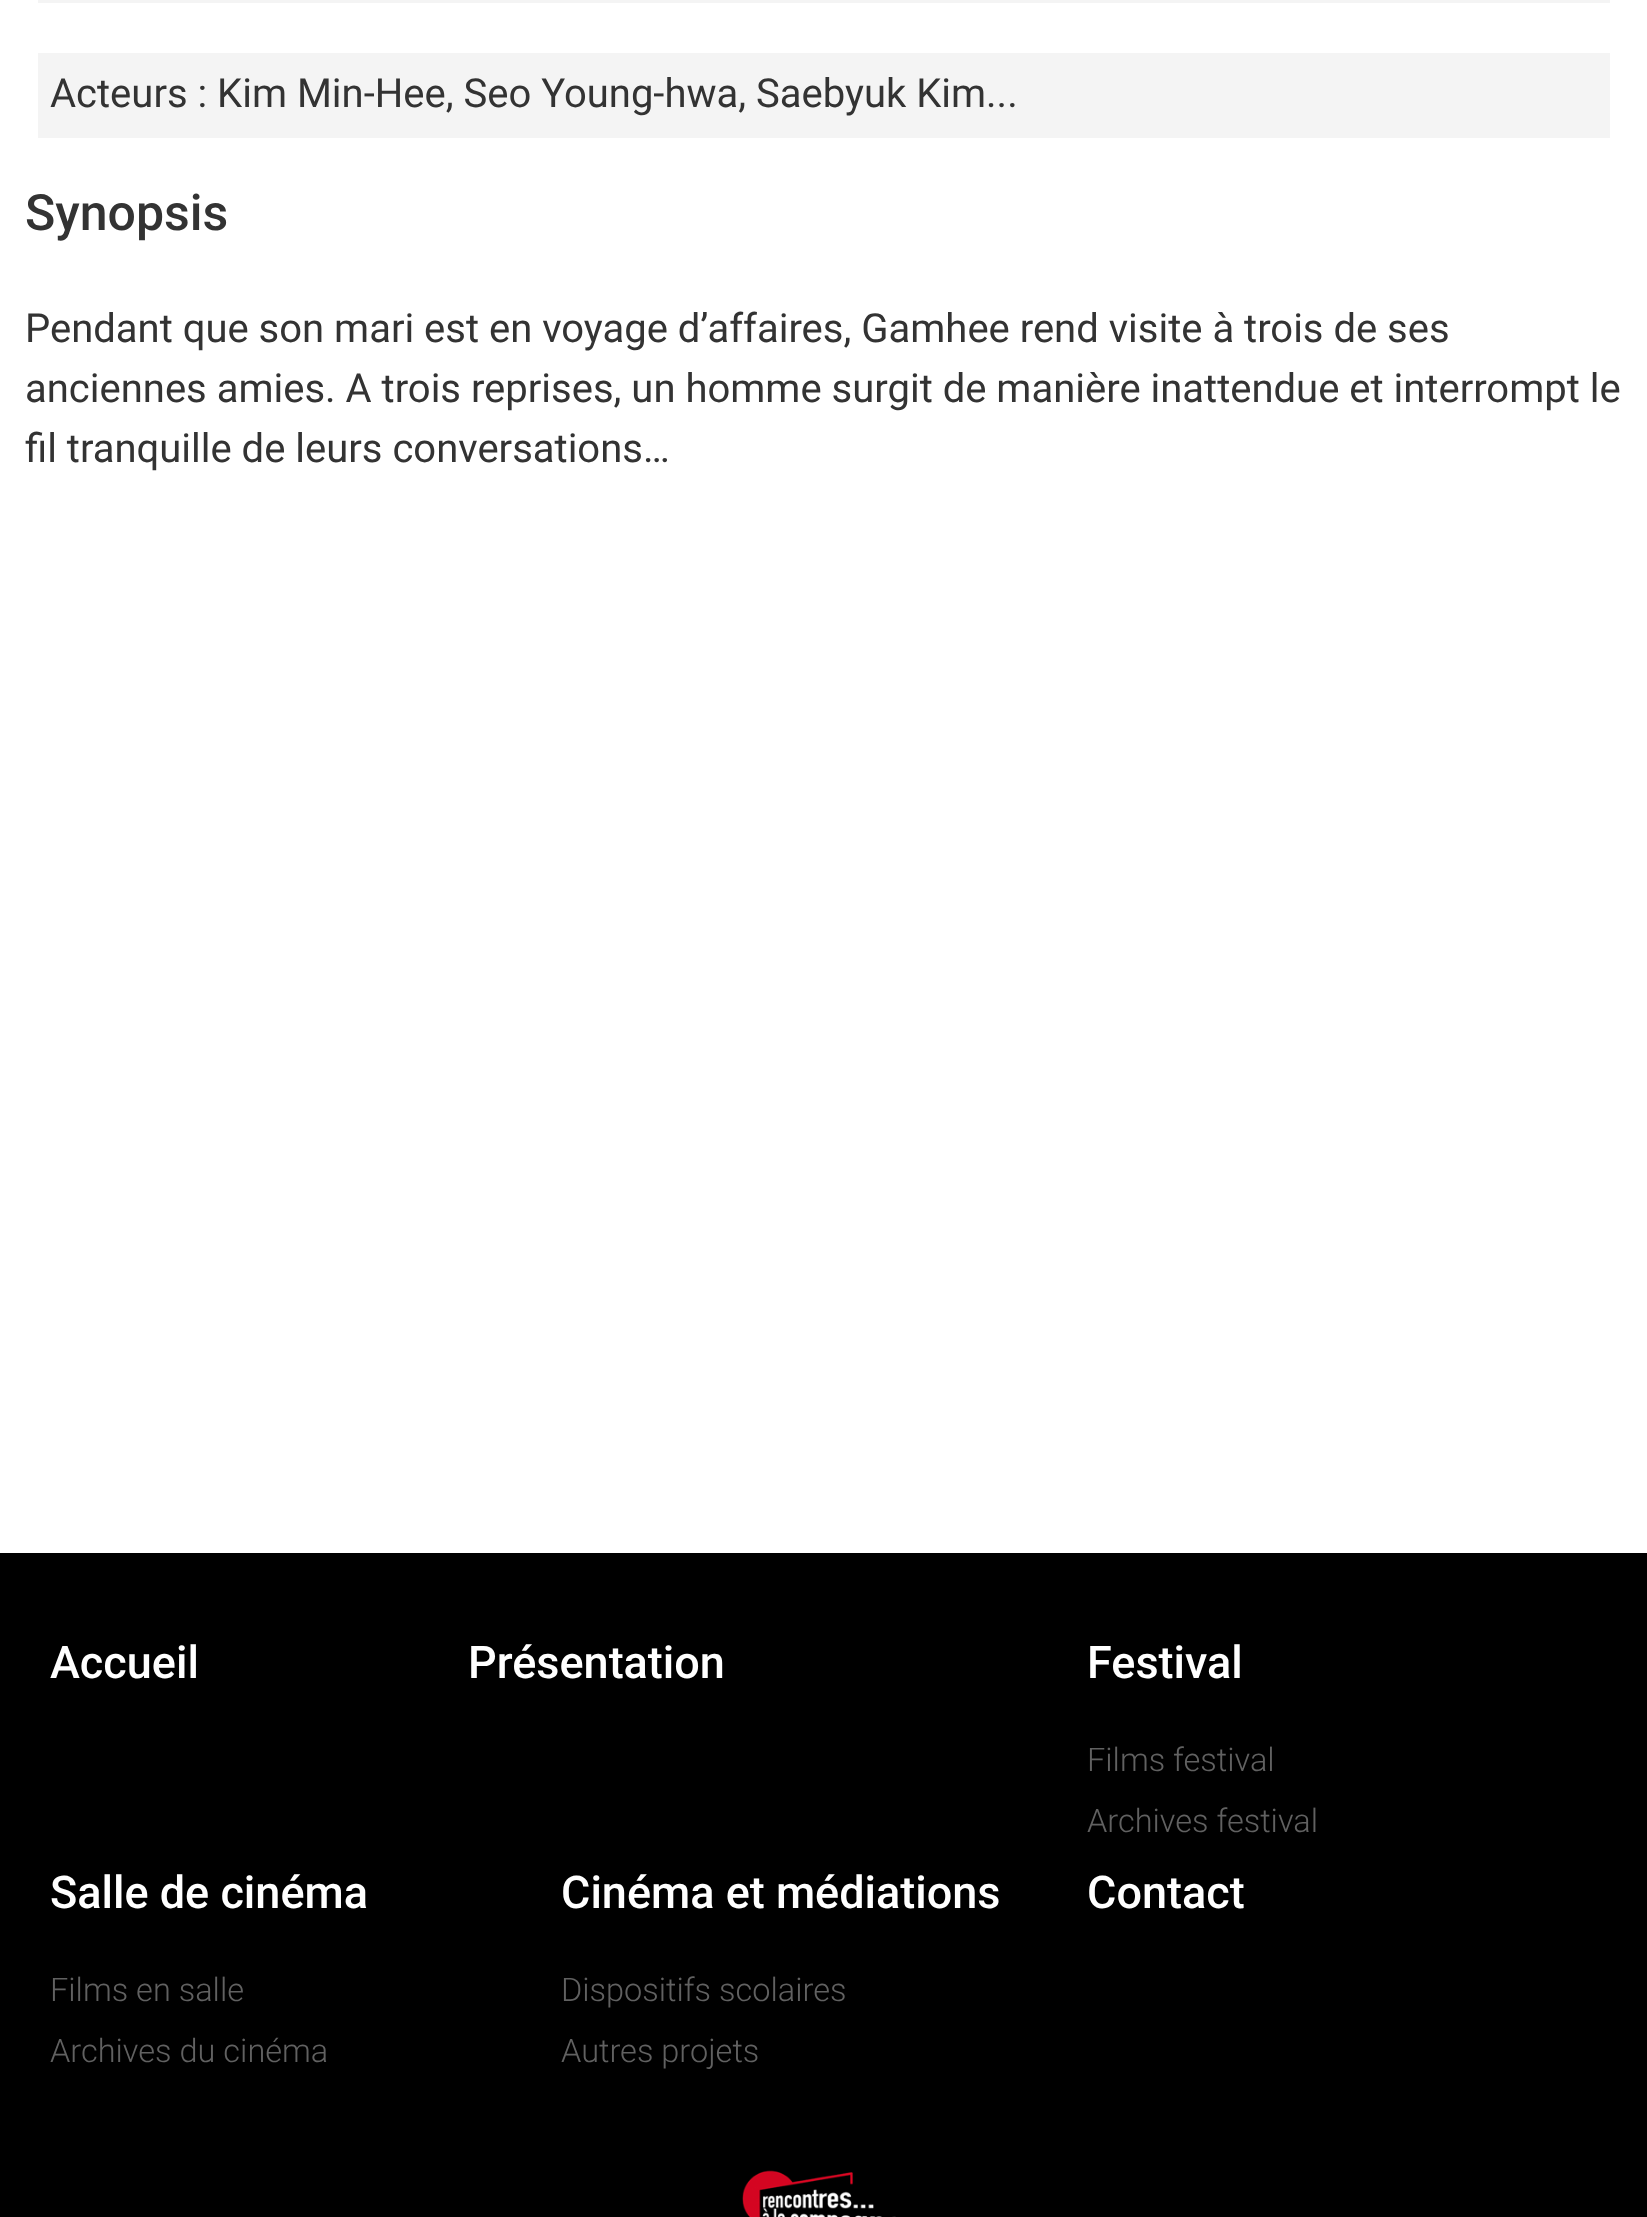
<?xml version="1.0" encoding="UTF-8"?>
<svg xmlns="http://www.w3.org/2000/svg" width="1647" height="2217">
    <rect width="100%" height="100%" fill="#FFFFFF"/>
    <rect x="38" y="0" width="1572" height="3" fill="#F4F4F4"/>
    <rect x="38" y="53" width="1572" height="85" fill="#F4F4F4"/>
    <text x="50" y="107" font-family="Roboto" font-size="40" fill="#333333">Acteurs : Kim Min-Hee, Seo Young-hwa, Saebyuk Kim...</text>
    <text x="25" y="230" font-family="Roboto" font-size="50" font-weight="500" fill="#333333">Synopsis</text>
    <text font-family="Roboto" font-size="40" fill="#333333">
        <tspan x="25" y="342">Pendant que son mari est en voyage d’affaires, Gamhee rend visite à trois de ses</tspan>
        <tspan x="25" y="402">anciennes amies. A trois reprises, un homme surgit de manière inattendue et interrompt le</tspan>
        <tspan x="25" y="462">fil tranquille de leurs conversations…</tspan>
    </text>
    <rect x="0" y="1553" width="1647" height="664" fill="#000000"/>
    <text x="50" y="1678" font-family="Roboto" font-size="45" font-weight="500" fill="#FFFFFF">Accueil</text>
    <text x="468" y="1678" font-family="Roboto" font-size="45" font-weight="500" fill="#FFFFFF">Présentation</text>
    <text x="1087" y="1678" font-family="Roboto" font-size="45" font-weight="500" fill="#FFFFFF">Festival</text>
    <text font-family="Roboto" font-size="32.5" font-weight="300" fill="#616161">
        <tspan x="1087" y="1771">Films festival</tspan>
        <tspan x="1087" y="1832">Archives festival</tspan>
    </text>
    <text x="50" y="1908" font-family="Roboto" font-size="45" font-weight="500" fill="#FFFFFF">Salle de cinéma</text>
    <text font-family="Roboto" font-size="32.5" font-weight="300" fill="#616161">
        <tspan x="50" y="2001">Films en salle</tspan>
        <tspan x="50" y="2062">Archives du cinéma</tspan>
    </text>
    <text x="561" y="1908" font-family="Roboto" font-size="45" font-weight="500" fill="#FFFFFF">Cinéma et médiations</text>
    <text font-family="Roboto" font-size="32.5" font-weight="300" fill="#616161">
        <tspan x="561" y="2001">Dispositifs scolaires</tspan>
        <tspan x="561" y="2062">Autres projets</tspan>
    </text>
    <text x="1087" y="1908" font-family="Roboto" font-size="45" font-weight="500" fill="#FFFFFF">Contact</text>
    <image x="742" y="2170" width="154" height="47" href="img_01.png"/>
</svg>
